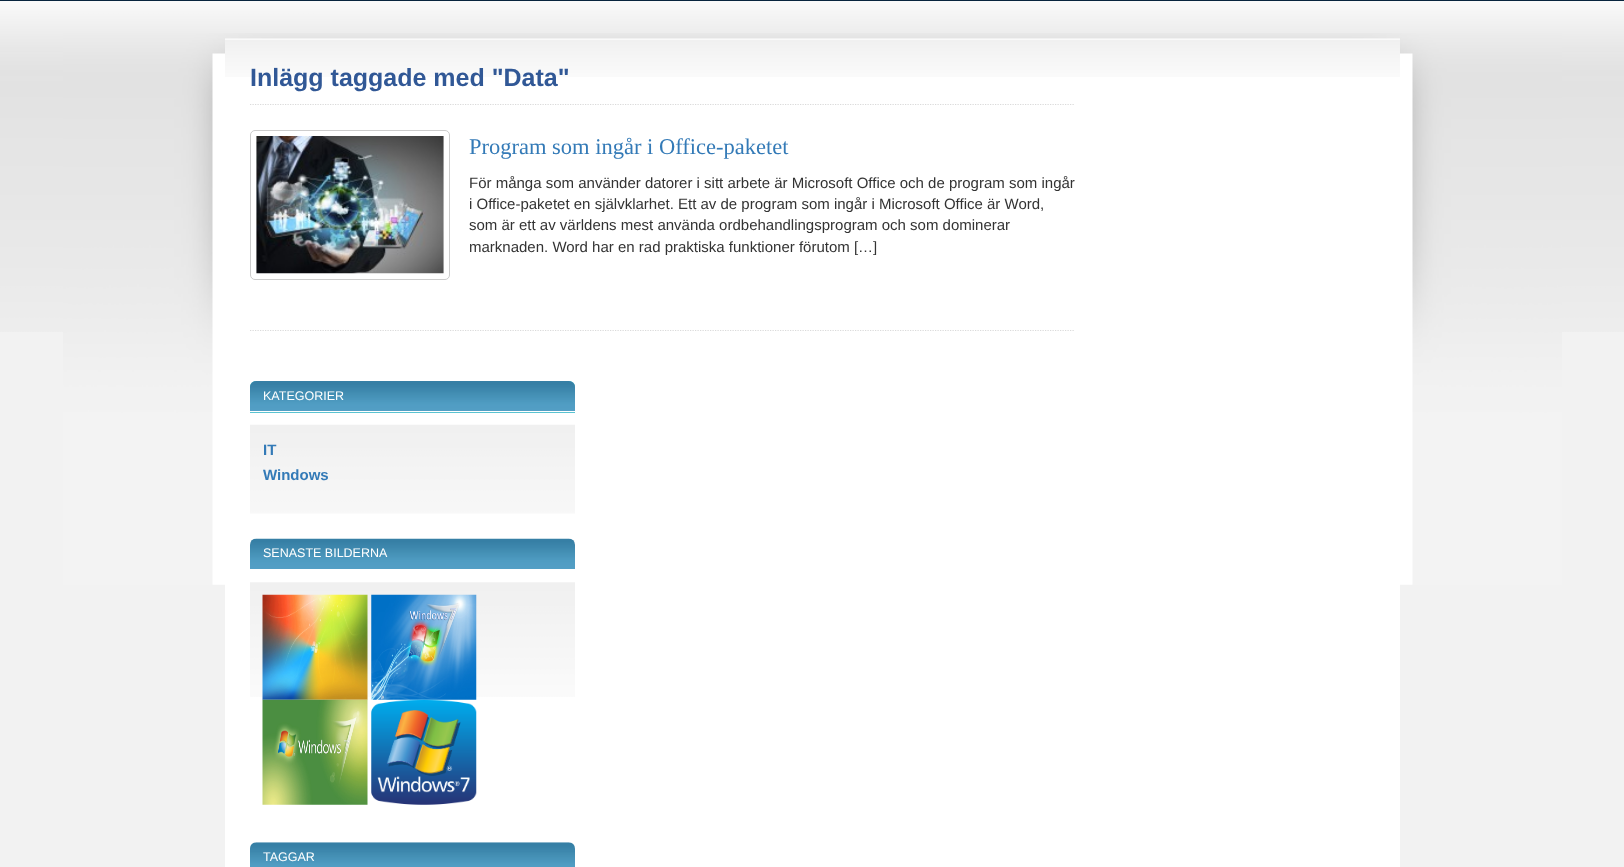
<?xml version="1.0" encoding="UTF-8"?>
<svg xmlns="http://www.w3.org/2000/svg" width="1624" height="867">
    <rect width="100%" height="100%" fill="#F2F2F2"/>
    <rect x="0" y="0" width="1624" height="1" fill="#08243D"/>
    <image x="0" y="1" width="1624" height="331" href="img_01.png"/>
    <image x="63" y="33" width="1499" height="552" href="img_02.png"/>
    <rect x="225" y="584" width="1175" height="283" fill="#FFFFFF"/>
    <image x="225" y="38" width="1175" height="39" href="img_03.png"/>
    <path d="M 250 104.5 H 1075" fill="none" stroke="#DADADA" stroke-width="1.2" stroke-dasharray="1.25 1.25"/>
    <text x="250" y="86" font-family="Liberation Sans" font-size="25" font-weight="700" fill="#315896">Inlägg taggade med "Data"</text>
    <path d="M 250 330.5 H 1075" fill="none" stroke="#DADADA" stroke-width="1.2" stroke-dasharray="1.25 1.25"/>
    <rect x="250.5" y="130.5" width="199" height="149" rx="4.5" fill="none" stroke="#CCCCCC"/>
    <image x="256" y="136" width="188" height="138" href="img_04.png"/>
    <text x="469" y="154" font-family="Liberation Serif" font-size="22.5" fill="#337AB7">Program som ingår i Office-paketet</text>
    <text font-family="Liberation Sans" font-size="15" fill="#333333">
        <tspan x="469" y="188">För många som använder datorer i sitt arbete är Microsoft Office och de program som ingår</tspan>
        <tspan x="469" y="209">i Office-paketet en självklarhet. Ett av de program som ingår i Microsoft Office är Word,</tspan>
        <tspan x="469" y="230">som är ett av världens mest använda ordbehandlingsprogram och som dominerar</tspan>
        <tspan x="469" y="252">marknaden. Word har en rad praktiska funktioner förutom […]</tspan>
    </text>
    <path d="M 256 381 H 569 C 572.5 381 575 383.5 575 387 V 413 H 250 V 387 C 250 383.5 252.5 381 256 381 Z" fill="#5AC3D1"/>
    <image x="250" y="381" width="325" height="30" href="img_05.png"/>
    <rect x="250" y="411" width="325" height="1" fill="#FFFFFF"/>
    <text x="263" y="400" font-family="Liberation Sans" font-size="12.5" fill="#FFFFFF">KATEGORIER</text>
    <image x="250" y="424" width="325" height="90" href="img_06.png"/>
    <text font-family="Liberation Sans" font-size="15" font-weight="700" fill="#337AB7">
        <tspan x="263" y="455">IT</tspan>
        <tspan x="263" y="480">Windows</tspan>
    </text>
    <image x="250" y="538" width="325" height="31" href="img_07.png"/>
    <text x="263" y="557" font-family="Liberation Sans" font-size="12.5" fill="#FFFFFF">SENASTE BILDERNA</text>
    <image x="250" y="582" width="325" height="115" href="img_08.png"/>
    <image x="262" y="594" width="106" height="106" href="img_09.png"/>
    <image x="371" y="594" width="106" height="106" href="img_10.png"/>
    <image x="262" y="699" width="106" height="106" href="img_11.png"/>
    <image x="371" y="699" width="106" height="106" href="img_12.png"/>
    <image x="250" y="842" width="325" height="25" href="img_13.png"/>
    <text x="263" y="861" font-family="Liberation Sans" font-size="12.5" fill="#FFFFFF">TAGGAR</text>
</svg>
